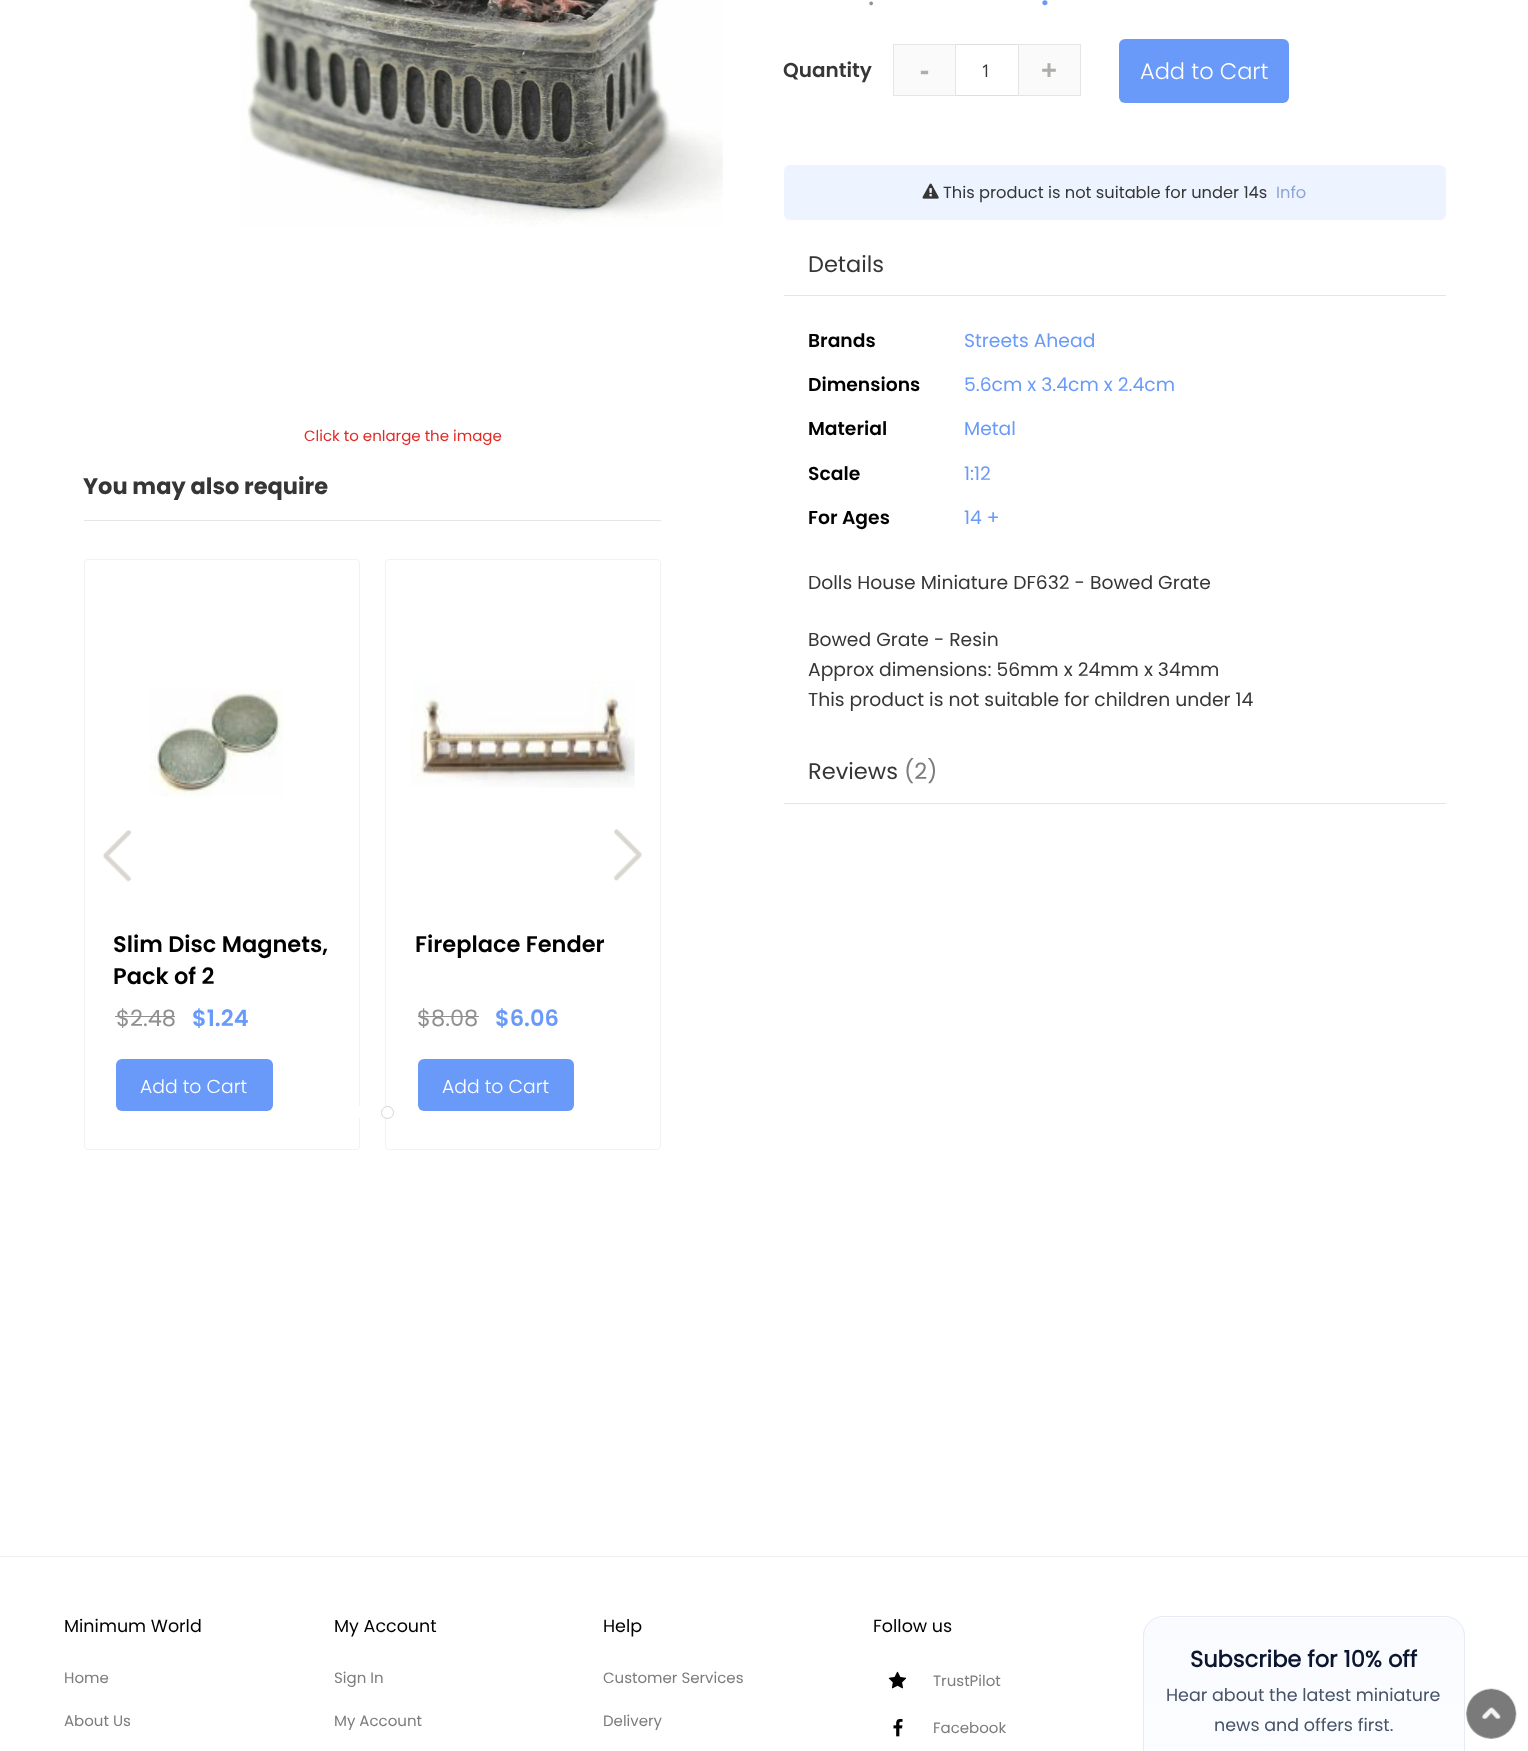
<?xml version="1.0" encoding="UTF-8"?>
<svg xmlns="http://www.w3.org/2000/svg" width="1528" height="1751">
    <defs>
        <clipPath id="clip1"><rect x="1143" y="1616" width="322" height="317" rx="20"/></clipPath>
        <linearGradient id="g1" gradientUnits="userSpaceOnUse" x1="1304" y1="1618" x2="1304" y2="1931"><stop offset="0" stop-color="#F9FBFF"/><stop offset="1" stop-color="#FFFFFF"/></linearGradient>
    </defs>
    <rect width="100%" height="100%" fill="#FFFFFF"/>
    <image x="241" y="0" width="482" height="227" href="img_01.png"/>
    <text x="304" y="441" font-family="Poppins" font-size="15" fill="#E02B27">Click to enlarge the image</text>
    <text x="83" y="494" font-family="Poppins" font-size="22.5" font-weight="700" fill="#363636">You may also require</text>
    <rect x="84" y="520" width="577" height="1" fill="#E5E5E5"/>
    <rect x="84.5" y="559.5" width="275" height="590" rx="3.5" fill="none" stroke="#F2F2F2"/>
    <image x="102" y="830" width="30" height="52" href="img_02.png"/>
    <rect x="385.5" y="559.5" width="275" height="590" rx="3.5" fill="none" stroke="#F2F2F2"/>
    <image x="613" y="829" width="30" height="52" href="img_03.png"/>
    <circle cx="357.5" cy="1112.5" r="6" fill="#FFFFFF" stroke="#FFFFFF"/>
    <circle cx="387.5" cy="1112.5" r="6" fill="#FFFFFF" stroke="#D6D6D6"/>
    <image x="150" y="689" width="133" height="108" href="img_04.png"/>
    <text font-family="Poppins" font-size="22.5" font-weight="600" fill="#000000">
        <tspan x="113" y="952">Slim Disc Magnets,</tspan>
        <tspan x="113" y="984">Pack of 2</tspan>
    </text>
    <text x="116" y="1026" font-family="Poppins" font-size="22.5" fill="#909090">$2.48</text>
    <rect x="115" y="1016" width="60" height="1" fill="#909090"/>
    <text x="192" y="1026" font-family="Poppins" font-size="22.5" font-weight="600" fill="#699AF9">$1.24</text>
    <rect x="116" y="1059" width="157" height="52" rx="6" fill="#699AF9"/>
    <text x="140" y="1093" font-family="Poppins" font-size="18.75" font-weight="300" fill="#FFFFFF">Add to Cart</text>
    <image x="411" y="681" width="224" height="107" href="img_05.png"/>
    <text x="415" y="952" font-family="Poppins" font-size="22.5" font-weight="600" fill="#000000">Fireplace Fender</text>
    <text x="417" y="1026" font-family="Poppins" font-size="22.5" fill="#909090">$8.08</text>
    <rect x="418" y="1016" width="61" height="1" fill="#909090"/>
    <text x="495" y="1026" font-family="Poppins" font-size="22.5" font-weight="600" fill="#699AF9">$6.06</text>
    <rect x="418" y="1059" width="156" height="52" rx="6" fill="#699AF9"/>
    <text x="442" y="1093" font-family="Poppins" font-size="18.75" font-weight="300" fill="#FFFFFF">Add to Cart</text>
    <text x="868" y="5" font-family="Poppins" font-size="30" fill="#909090">.</text>
    <text x="1041" y="5" font-family="Poppins" font-size="30" font-weight="600" fill="#699AF9">.</text>
    <text x="783" y="77" font-family="Poppins" font-size="20" font-weight="600" fill="#363636">Quantity</text>
    <rect x="955.5" y="44.5" width="63" height="51" fill="none" stroke="#DFDFDF"/>
    <rect x="893.5" y="44.5" width="62" height="51" fill="#FAFAFA" stroke="#E5E5E5"/>
    <text x="920" y="80" font-family="Open Sans" font-size="28" font-weight="700" fill="#AEADAA">-</text>
    <text x="981" y="77" font-family="Open Sans" font-size="17.5" fill="#363636">1</text>
    <rect x="1018.5" y="44.5" width="62" height="51" fill="#FAFAFA" stroke="#E5E5E5"/>
    <text x="1041" y="80" font-family="Open Sans" font-size="28" font-weight="700" fill="#AEADAA">+</text>
    <rect x="1119" y="39" width="170" height="64" rx="6" fill="#699AF9"/>
    <text x="1140" y="79" font-family="Poppins" font-size="22.5" font-weight="300" fill="#FFFFFF">Add to Cart</text>
    <rect x="784" y="165" width="662" height="55" rx="6" fill="#EDF4FF"/>
    <image x="922" y="183" width="17" height="16" href="img_06.png"/>
    <text x="943" y="198" font-family="Poppins" font-size="16.25" fill="#363636">This product is not suitable for under 14s</text>
    <text x="1276" y="198" font-family="Poppins" font-size="16.25" fill="#8CA5D3">Info</text>
    <rect x="784" y="295" width="662" height="1" fill="#E5E5E5"/>
    <text x="808" y="272" font-family="Poppins" font-size="22.5" fill="#363636">Details</text>
    <text x="808" y="347" font-family="Poppins" font-size="18.75" font-weight="600" fill="#000000">Brands</text>
    <text x="964" y="347" font-family="Poppins" font-size="18.75" fill="#699AF9">Streets Ahead</text>
    <text x="808" y="391" font-family="Poppins" font-size="18.75" font-weight="600" fill="#000000">Dimensions</text>
    <text x="964" y="391" font-family="Poppins" font-size="18.75" fill="#699AF9">5.6cm x 3.4cm x 2.4cm</text>
    <text x="808" y="435" font-family="Poppins" font-size="18.75" font-weight="600" fill="#000000">Material</text>
    <text x="964" y="435" font-family="Poppins" font-size="18.75" fill="#699AF9">Metal</text>
    <text x="808" y="480" font-family="Poppins" font-size="18.75" font-weight="600" fill="#000000">Scale</text>
    <text x="964" y="480" font-family="Poppins" font-size="18.75" fill="#699AF9">1:12</text>
    <text x="808" y="524" font-family="Poppins" font-size="18.75" font-weight="600" fill="#000000">For Ages</text>
    <text x="964" y="524" font-family="Poppins" font-size="18.75" fill="#699AF9">14 +</text>
    <text x="808" y="589" font-family="Poppins" font-size="18.75" fill="#363636">Dolls House Miniature DF632 - Bowed Grate</text>
    <text font-family="Poppins" font-size="18.75" fill="#363636">
        <tspan x="808" y="646">Bowed Grate - Resin</tspan>
        <tspan x="808" y="676">Approx dimensions: 56mm x 24mm x 34mm</tspan>
        <tspan x="808" y="706">This product is not suitable for children under 14</tspan>
    </text>
    <rect x="784" y="803" width="662" height="1" fill="#E5E5E5"/>
    <text x="808" y="779" font-family="Poppins" font-size="22.5" fill="#363636">Reviews</text>
    <text x="904" y="779" font-family="Poppins" font-size="22.5" fill="#7C7C7C">(2)</text>
    <rect x="0" y="1556" width="1528" height="1" fill="#EFEFEF"/>
    <text x="64" y="1632" font-family="'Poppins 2'" font-size="17.5" fill="#000000">Minimum World</text>
    <text x="64" y="1683" font-family="'Poppins 2'" font-size="15" fill="#7C7C7C">Home</text>
    <text x="64" y="1726" font-family="'Poppins 2'" font-size="15" fill="#7C7C7C">About Us</text>
    <text x="334" y="1632" font-family="'Poppins 2'" font-size="17.5" fill="#000000">My Account</text>
    <text x="334" y="1683" font-family="'Poppins 2'" font-size="15" fill="#7C7C7C">Sign In</text>
    <text x="334" y="1726" font-family="'Poppins 2'" font-size="15" fill="#7C7C7C">My Account</text>
    <text x="603" y="1632" font-family="'Poppins 2'" font-size="17.5" fill="#000000">Help</text>
    <text x="603" y="1683" font-family="'Poppins 2'" font-size="15" fill="#7C7C7C">Customer Services</text>
    <text x="603" y="1726" font-family="'Poppins 2'" font-size="15" fill="#7C7C7C">Delivery</text>
    <text x="873" y="1632" font-family="'Poppins 2'" font-size="17.5" fill="#000000">Follow us</text>
    <image x="888" y="1671" width="19" height="18" href="img_07.png"/>
    <text x="933" y="1686" font-family="'Poppins 2'" font-size="15" fill="#7C7C7C">TrustPilot</text>
    <image x="893" y="1718" width="10" height="19" href="img_08.png"/>
    <text x="933" y="1733" font-family="'Poppins 2'" font-size="15" fill="#7C7C7C">Facebook</text>
    <g clip-path="url(#clip1)">
        <rect x="1143" y="1618" width="322" height="133" fill="url(#g1)"/>
    </g>
    <rect x="1143.5" y="1616.5" width="321" height="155" rx="19.5" fill="none" stroke="#E6EBF5"/>
    <text x="1190" y="1667" font-family="'Poppins 2'" font-size="22.5" font-weight="700" fill="#0B152E">Subscribe for 10% off</text>
    <text x="1166" y="1701" font-family="'Poppins 2'" font-size="17.5" fill="#475466">Hear about the latest miniature</text>
    <text x="1214" y="1731" font-family="'Poppins 2'" font-size="17.5" fill="#475466">news and offers first.</text>
    <circle cx="1491" cy="1714" r="25" fill="#F5F5F5"/>
    <image x="1466" y="1688" width="51" height="51" href="img_09.png"/>
</svg>
